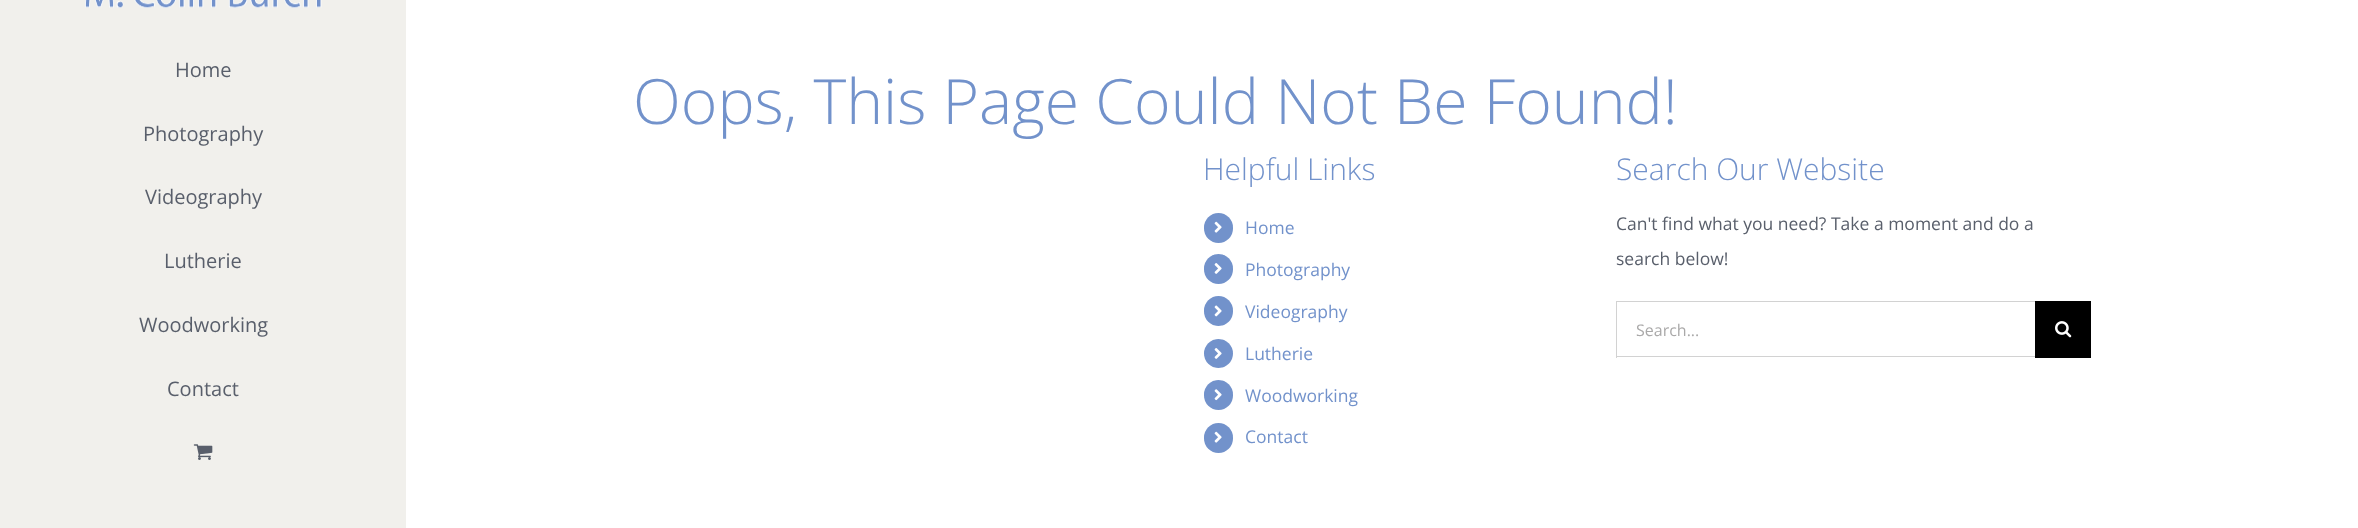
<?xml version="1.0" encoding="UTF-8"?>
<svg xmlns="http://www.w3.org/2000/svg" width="2358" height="528">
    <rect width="100%" height="100%" fill="#FFFFFF"/>
    <rect x="0" y="0" width="406" height="528" fill="#F1F0EC"/>
    <image x="85" y="0" width="237" height="8" href="img_01.png"/>
    <text x="175" y="77" font-family="Open Sans" font-size="20" fill="#595F6B">Home</text>
    <text x="143" y="141" font-family="Open Sans" font-size="20" fill="#595F6B">Photography</text>
    <text x="145" y="204" font-family="Open Sans" font-size="20" fill="#595F6B">Videography</text>
    <text x="164" y="268" font-family="Open Sans" font-size="20" fill="#595F6B">Lutherie</text>
    <text x="139" y="332" font-family="Open Sans" font-size="20" fill="#595F6B">Woodworking</text>
    <text x="167" y="396" font-family="Open Sans" font-size="20" fill="#595F6B">Contact</text>
    <image x="193" y="444" width="20" height="16" href="img_02.png"/>
    <text x="633" y="124" font-family="Open Sans" font-size="62.5" font-weight="300" fill="#7292CB">Oops, This Page Could Not Be Found!</text>
    <text x="1203" y="180" font-family="Open Sans" font-size="30" font-weight="300" fill="#7292CB">Helpful Links</text>
    <rect x="1204" y="213" width="29" height="30" rx="14.5" fill="#7292CB"/>
    <image x="1214" y="221" width="8" height="12" href="img_03.png"/>
    <text x="1245" y="234" font-family="Open Sans" font-size="17.5" fill="#7292CB">Home</text>
    <rect x="1204" y="254" width="29" height="30" rx="14.5" fill="#7292CB"/>
    <image x="1214" y="263" width="8" height="11" href="img_04.png"/>
    <text x="1245" y="276" font-family="Open Sans" font-size="17.5" fill="#7292CB">Photography</text>
    <rect x="1204" y="296" width="29" height="30" rx="14.5" fill="#7292CB"/>
    <image x="1214" y="305" width="8" height="12" href="img_05.png"/>
    <text x="1245" y="318" font-family="Open Sans" font-size="17.5" fill="#7292CB">Videography</text>
    <circle cx="1218.5" cy="353.5" r="14.5" fill="#7292CB"/>
    <image x="1214" y="348" width="8" height="11" href="img_04.png"/>
    <text x="1245" y="360" font-family="Open Sans" font-size="17.5" fill="#7292CB">Lutherie</text>
    <rect x="1204" y="380" width="29" height="30" rx="14.5" fill="#7292CB"/>
    <image x="1214" y="389" width="8" height="12" href="img_06.png"/>
    <text x="1245" y="402" font-family="Open Sans" font-size="17.5" fill="#7292CB">Woodworking</text>
    <rect x="1204" y="423" width="29" height="30" rx="14.5" fill="#7292CB"/>
    <image x="1214" y="431" width="8" height="12" href="img_03.png"/>
    <text x="1245" y="443" font-family="Open Sans" font-size="17.5" fill="#7292CB">Contact</text>
    <text x="1616" y="180" font-family="Open Sans" font-size="30" font-weight="300" fill="#7292CB">Search Our Website</text>
    <text x="1616" y="230" font-family="Open Sans" font-size="17.5" fill="#595F6B">Can't find what you need? Take a moment and do a</text>
    <text x="1616" y="265" font-family="Open Sans" font-size="17.5" fill="#595F6B">search below!</text>
    <rect x="1616" y="301" width="419" height="1" fill="#D2D2D2"/>
    <rect x="1616" y="356" width="419" height="1" fill="#D2D2D2"/>
    <rect x="1616" y="301" width="1" height="57" fill="#D2D2D2"/>
    <text x="1636" y="336" font-family="Open Sans" font-size="16" fill="#AAA9A9">Search...</text>
    <rect x="2035" y="301" width="56" height="57" fill="#000000"/>
    <image x="2055" y="321" width="17" height="17" href="img_07.png"/>
</svg>
